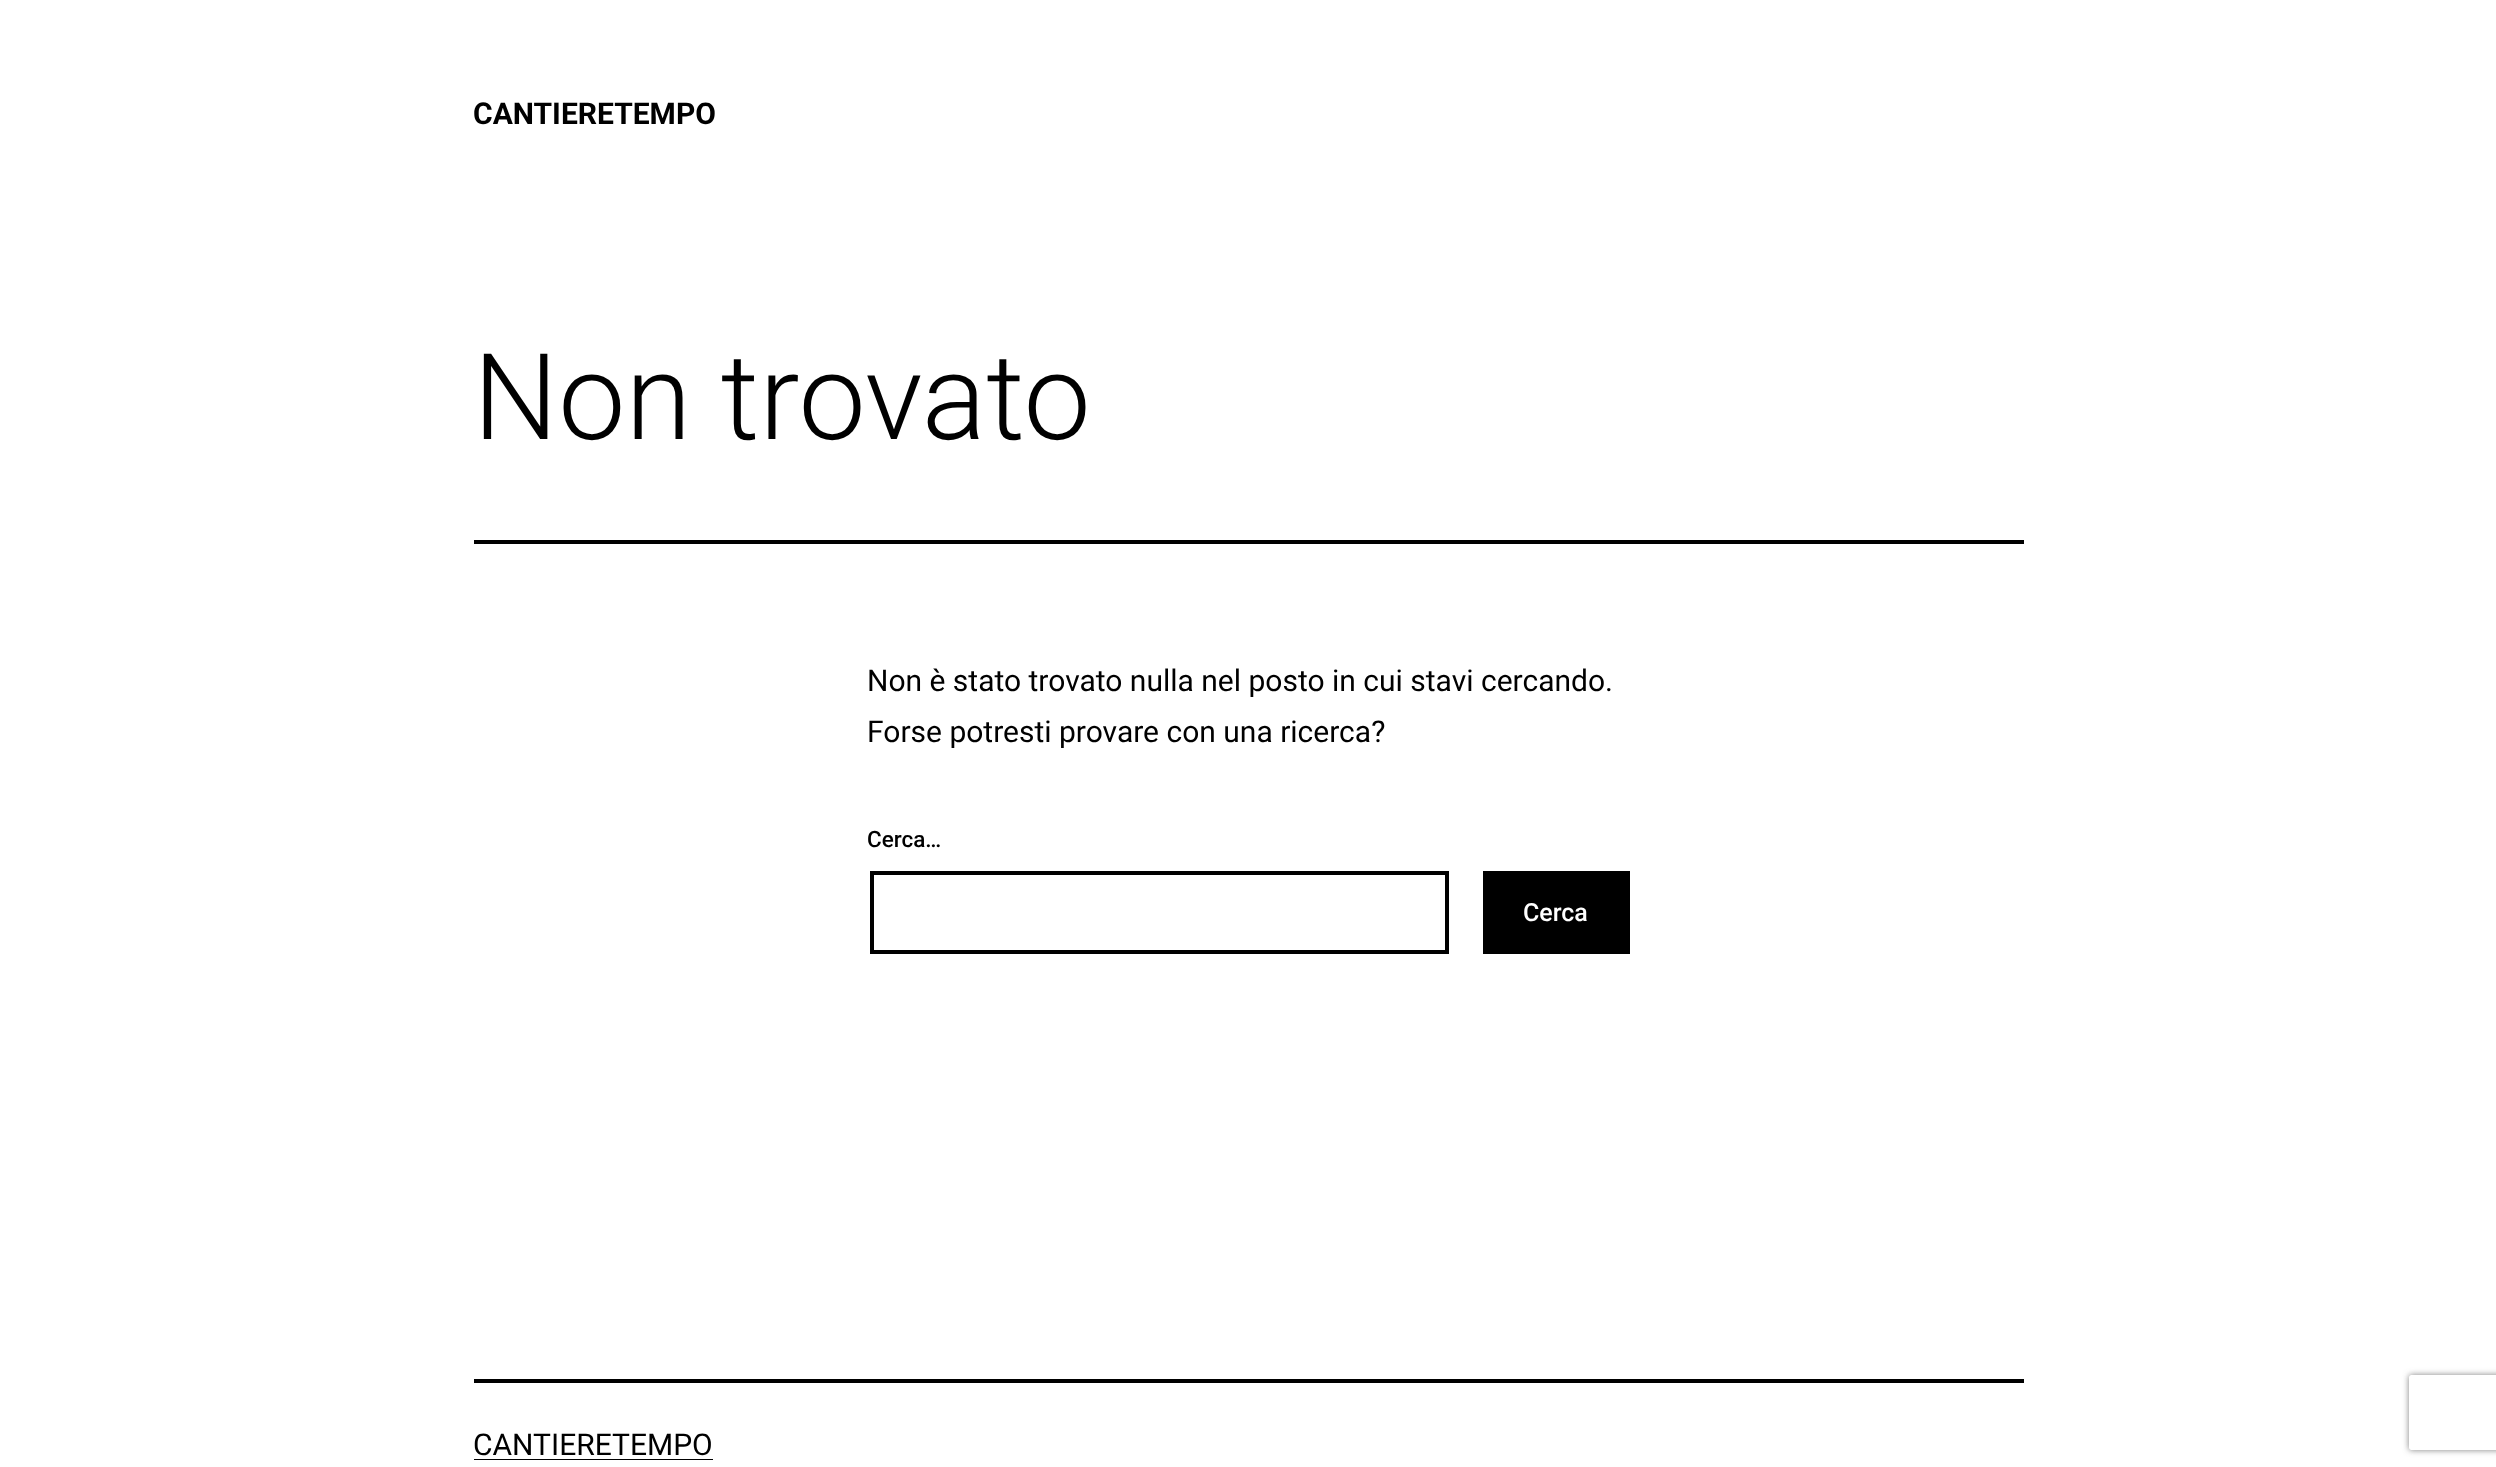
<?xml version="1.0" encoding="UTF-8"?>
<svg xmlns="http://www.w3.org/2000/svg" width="2496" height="1467">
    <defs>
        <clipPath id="clip1"><path d="M 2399 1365 H 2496 V 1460 H 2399 Z M 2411.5 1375 H 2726.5 C 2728 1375 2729 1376 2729 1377.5 V 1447.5 C 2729 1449 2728 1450 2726.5 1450 H 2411.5 C 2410 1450 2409 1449 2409 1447.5 V 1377.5 C 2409 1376 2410 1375 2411.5 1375 Z" clip-rule="evenodd"/></clipPath>
        <filter id="blur1" x="-50%" y="-200%" width="200%" height="500%"><feGaussianBlur stdDeviation="3"/></filter>
    </defs>
    <rect width="100%" height="100%" fill="#FFFFFF"/>
    <text x="473" y="124" font-family="Roboto" font-size="30" font-weight="700" fill="#000000">CANTIERETEMPO</text>
    <rect x="474" y="540" width="1550" height="4" fill="#000000"/>
    <text x="473" y="439" font-family="Roboto" font-size="120" font-weight="300" fill="#000000">Non trovato</text>
    <text font-family="Roboto" font-size="30" fill="#000000">
        <tspan x="867" y="691">Non è stato trovato nulla nel posto in cui stavi cercando.</tspan>
        <tspan x="867" y="742">Forse potresti provare con una ricerca?</tspan>
    </text>
    <text x="867" y="847" font-family="Roboto" font-size="22.5" font-weight="500" fill="#000000">Cerca…</text>
    <rect x="872" y="873" width="575" height="79" fill="none" stroke="#000000" stroke-width="4"/>
    <rect x="1483" y="871" width="147" height="83" fill="#000000"/>
    <text x="1523" y="921" font-family="Roboto" font-size="25" font-weight="500" fill="#FFFFFF">Cerca</text>
    <rect x="474" y="1379" width="1550" height="4" fill="#000000"/>
    <text x="473" y="1455" font-family="Roboto" font-size="30" fill="#000000">CANTIERETEMPO</text>
    <rect x="474" y="1459" width="239" height="1" fill="#000000"/>
    <g clip-path="url(#clip1)">
        <rect x="2409" y="1375" width="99" height="75" rx="2.5" fill="#808080" filter="url(#blur1)"/>
    </g>
</svg>
